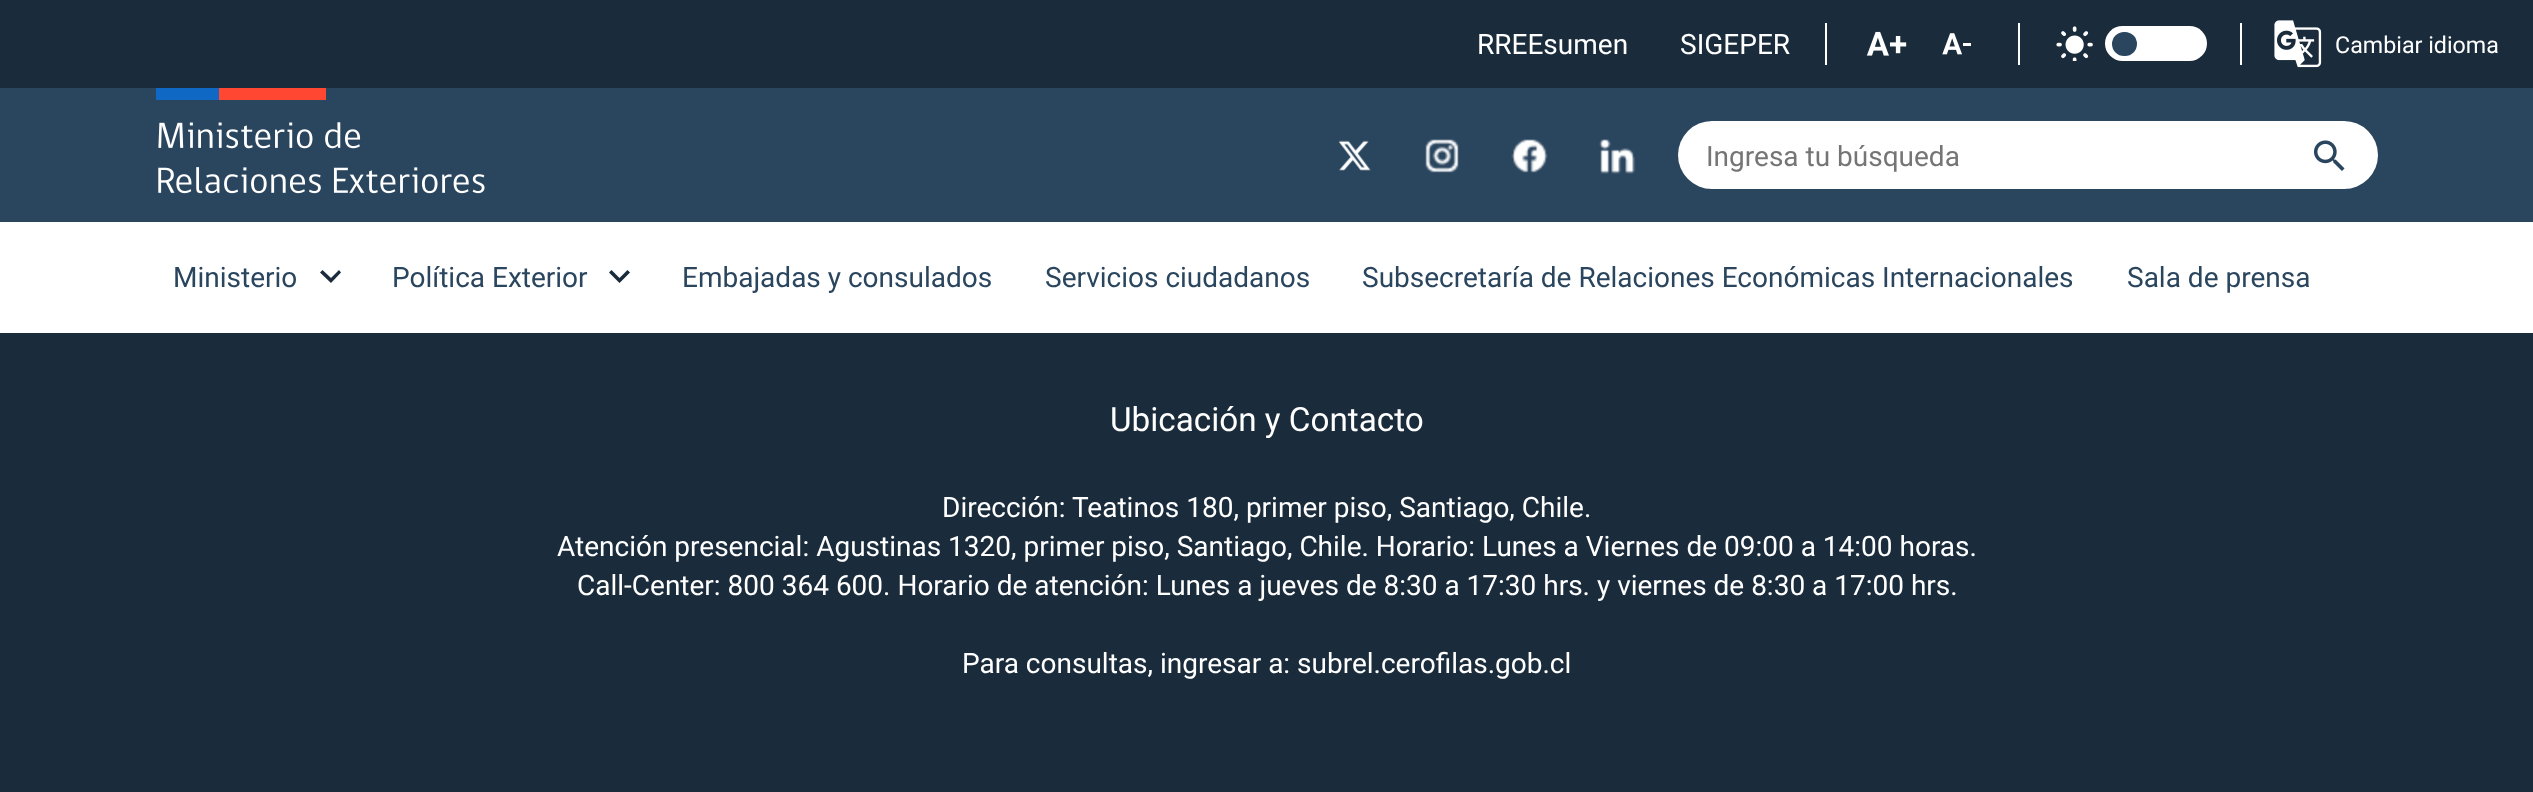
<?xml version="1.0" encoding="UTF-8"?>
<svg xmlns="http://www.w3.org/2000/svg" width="2533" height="792">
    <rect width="100%" height="100%" fill="#1A2B3B"/>
    <rect x="0" y="222" width="2533" height="111" fill="#FFFFFF"/>
    <text x="1477" y="54" font-family="Roboto" font-size="28" fill="#FFFFFF">RREEsumen</text>
    <text x="1680" y="54" font-family="Roboto" font-size="28" fill="#FFFFFF">SIGEPER</text>
    <rect x="1825" y="23" width="2" height="42" fill="#FFFFFF"/>
    <image x="1866" y="31" width="41" height="25" href="img_01.png"/>
    <image x="1942" y="33" width="29" height="22" href="img_02.png"/>
    <rect x="2018" y="23" width="2" height="42" fill="#FFFFFF"/>
    <rect x="2105" y="26" width="102" height="35" rx="17.5" fill="#FFFFFF"/>
    <image x="2056" y="26" width="37" height="35" href="img_03.png"/>
    <rect x="2112" y="32" width="25" height="24" rx="12" fill="#2A455E"/>
    <rect x="2240" y="23" width="2" height="42" fill="#FFFFFF"/>
    <image x="2274" y="20" width="48" height="48" href="img_04.png"/>
    <text x="2335" y="53" font-family="Roboto" font-size="23.25" fill="#FFFFFF">Cambiar idioma</text>
    <rect x="0" y="88" width="2533" height="134" fill="#2A455E"/>
    <image x="156" y="88" width="329" height="106" href="img_05.png"/>
    <image x="1339" y="140" width="32" height="31" href="img_06.png"/>
    <image x="1425" y="139" width="34" height="34" href="img_07.png"/>
    <image x="1511" y="139" width="37" height="34" href="img_08.png"/>
    <image x="1599" y="139" width="37" height="35" href="img_09.png"/>
    <rect x="1678" y="121" width="700" height="68" rx="34" fill="#FFFFFF"/>
    <text x="1706" y="166" font-family="Roboto" font-size="28" fill="#757575">Ingresa tu búsqueda</text>
    <image x="2313" y="140" width="32" height="31" href="img_10.png"/>
    <path d="M 339 270 L 331 278 L 322.5 270 L 320 272.5 L 331 283 L 341 272.5 Z" fill="#1A2B3B"/>
    <text x="173" y="287" font-family="Roboto" font-size="28" fill="#2A455E">Ministerio</text>
    <path d="M 627.5 270 L 619.5 278 L 611.5 270 L 609 272.5 L 619.5 283 L 630 272.5 Z" fill="#1A2B3B"/>
    <text x="392" y="287" font-family="Roboto" font-size="28" fill="#2A455E">Política Exterior</text>
    <text x="682" y="287" font-family="Roboto" font-size="28" fill="#2A455E">Embajadas y consulados</text>
    <text x="1045" y="287" font-family="Roboto" font-size="28" fill="#2A455E">Servicios ciudadanos</text>
    <text x="1362" y="287" font-family="Roboto" font-size="28" fill="#2A455E">Subsecretaría de Relaciones Económicas Internacionales</text>
    <text x="2127" y="287" font-family="Roboto" font-size="28" fill="#2A455E">Sala de prensa</text>
    <text x="1110" y="431" font-family="Roboto" font-size="33.25" fill="#FFFFFF">Ubicación y Contacto</text>
    <text x="942" y="517" font-family="Roboto" font-size="28" fill="#FFFFFF">Dirección: Teatinos 180, primer piso, Santiago, Chile.</text>
    <text x="557" y="556" font-family="Roboto" font-size="28" fill="#FFFFFF">Atención presencial: Agustinas 1320, primer piso, Santiago, Chile. Horario: Lunes a Viernes de 09:00 a 14:00 horas.</text>
    <text x="577" y="595" font-family="Roboto" font-size="28" fill="#FFFFFF">Call-Center: 800 364 600. Horario de atención: Lunes a jueves de 8:30 a 17:30 hrs. y viernes de 8:30 a 17:00 hrs.</text>
    <text x="962" y="673" font-family="Roboto" font-size="28" fill="#FFFFFF">Para consultas, ingresar a: subrel.cerofilas.gob.cl</text>
</svg>
